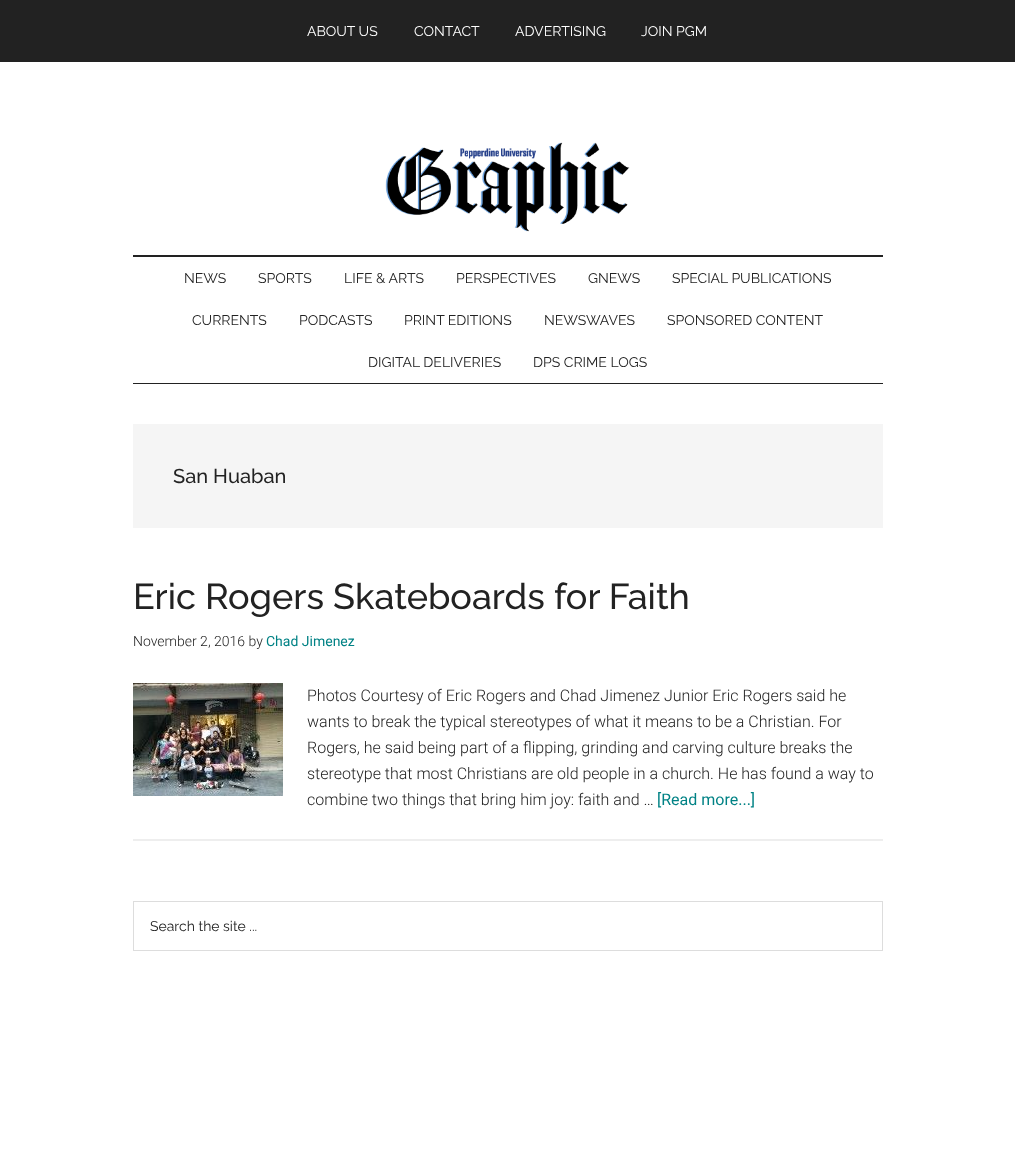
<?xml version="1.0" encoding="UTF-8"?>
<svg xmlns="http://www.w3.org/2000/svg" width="1015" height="1173">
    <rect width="100%" height="100%" fill="#FFFFFF"/>
    <rect x="0" y="0" width="1015" height="62" fill="#222222"/>
    <text x="307" y="36" font-family="Raleway" font-size="14" fill="#FFFFFF">ABOUT US</text>
    <text x="414" y="36" font-family="Raleway" font-size="14" fill="#FFFFFF">CONTACT</text>
    <text x="515" y="36" font-family="Raleway" font-size="14" fill="#FFFFFF">ADVERTISING</text>
    <text x="641" y="36" font-family="Raleway" font-size="14" fill="#FFFFFF">JOIN PGM</text>
    <rect x="133" y="255" width="750" height="2" fill="#222222"/>
    <image x="385" y="142" width="245" height="90" href="img_01.png"/>
    <rect x="133" y="383" width="750" height="1" fill="#222222"/>
    <text x="184" y="283" font-family="Raleway" font-size="14" fill="#222222">NEWS</text>
    <text x="258" y="283" font-family="Raleway" font-size="14" fill="#222222">SPORTS</text>
    <text x="344" y="283" font-family="Raleway" font-size="14" fill="#222222">LIFE &amp; ARTS</text>
    <text x="456" y="283" font-family="Raleway" font-size="14" fill="#222222">PERSPECTIVES</text>
    <text x="588" y="283" font-family="Raleway" font-size="14" fill="#222222">GNEWS</text>
    <text x="672" y="283" font-family="Raleway" font-size="14" fill="#222222">SPECIAL PUBLICATIONS</text>
    <text x="192" y="325" font-family="Raleway" font-size="14" fill="#222222">CURRENTS</text>
    <text x="299" y="325" font-family="Raleway" font-size="14" fill="#222222">PODCASTS</text>
    <text x="404" y="325" font-family="Raleway" font-size="14" fill="#222222">PRINT EDITIONS</text>
    <text x="544" y="325" font-family="Raleway" font-size="14" fill="#222222">NEWSWAVES</text>
    <text x="667" y="325" font-family="Raleway" font-size="14" fill="#222222">SPONSORED CONTENT</text>
    <text x="368" y="367" font-family="Raleway" font-size="14" fill="#222222">DIGITAL DELIVERIES</text>
    <text x="533" y="367" font-family="Raleway" font-size="14" fill="#222222">DPS CRIME LOGS</text>
    <rect x="133" y="424" width="750" height="104" fill="#F5F5F5"/>
    <text x="173" y="483" font-family="Raleway" font-size="20" font-weight="500" fill="#222222">San Huaban</text>
    <rect x="133" y="839" width="750" height="2" fill="#EEEEEE"/>
    <text x="133" y="609" font-family="Raleway" font-size="36" font-weight="500" fill="#222222">Eric Rogers Skateboards for Faith</text>
    <text x="133" y="646" font-family="Roboto" font-size="14" font-weight="300" fill="#222222">November 2, 2016 by</text>
    <text x="266" y="646" font-family="Roboto" font-size="14" fill="#008285">Chad Jimenez</text>
    <image x="133" y="683" width="150" height="113" href="img_02.png"/>
    <text font-family="Roboto" font-size="16" font-weight="300" fill="#222222">
        <tspan x="307" y="701">Photos Courtesy of Eric Rogers and Chad Jimenez Junior Eric Rogers said he</tspan>
        <tspan x="307" y="727">wants to break the typical stereotypes of what it means to be a Christian. For</tspan>
        <tspan x="307" y="753">Rogers, he said being part of a flipping, grinding and carving culture breaks the</tspan>
        <tspan x="307" y="779">stereotype that most Christians are old people in a church. He has found a way to</tspan>
        <tspan x="307" y="805">combine two things that bring him joy: faith and …</tspan>
    </text>
    <text x="657" y="805" font-family="Roboto" font-size="16" fill="#008285">[Read more...]</text>
    <rect x="133.5" y="901.5" width="749" height="49" fill="none" stroke="#DDDDDD"/>
    <text x="150" y="931" font-family="Raleway" font-size="14" fill="#222222">Search the site ...</text>
</svg>
